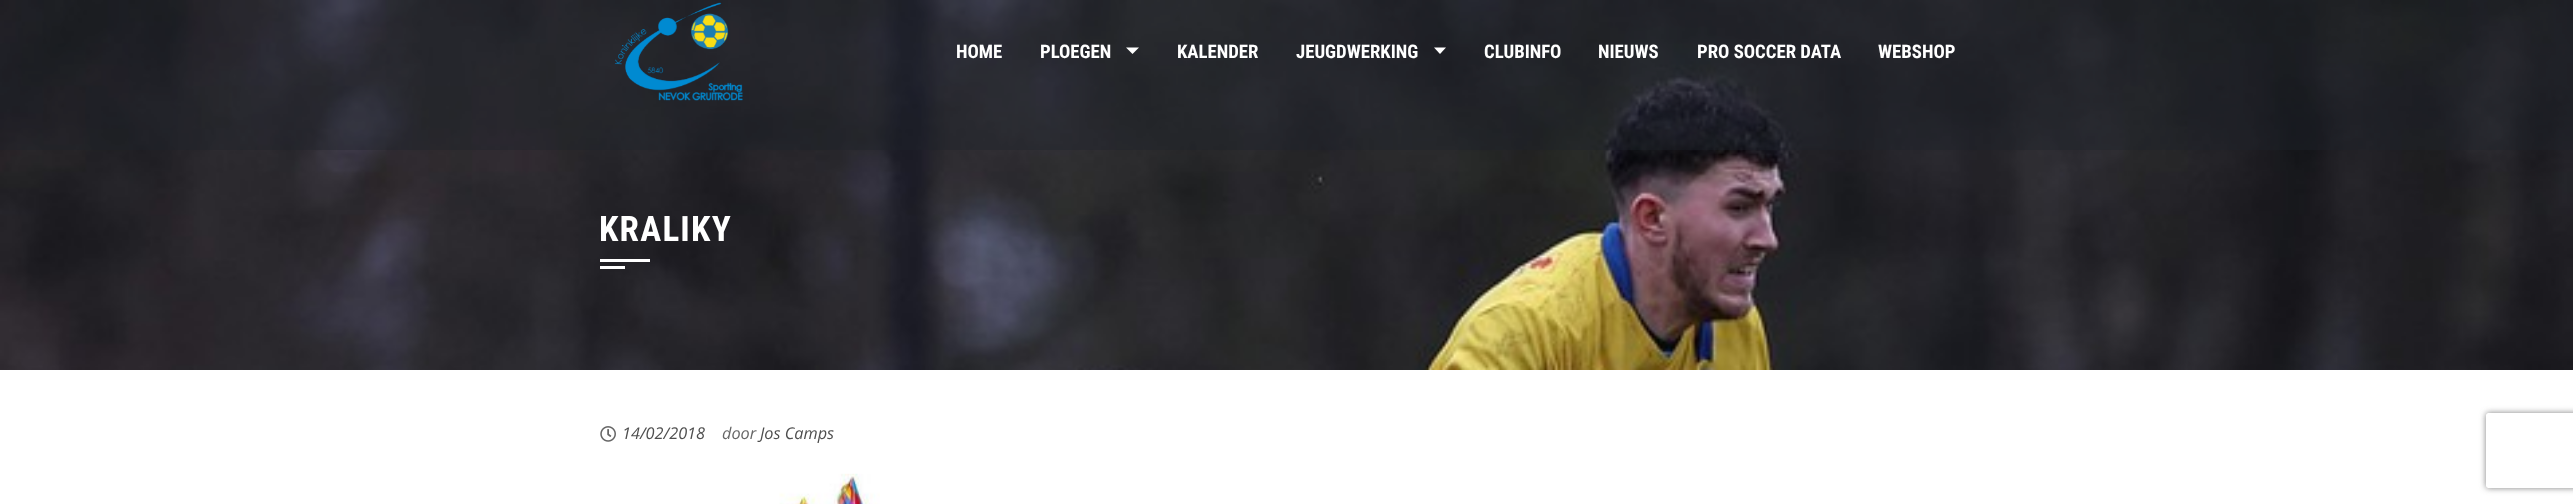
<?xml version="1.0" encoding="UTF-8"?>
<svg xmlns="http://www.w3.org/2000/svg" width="2573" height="504">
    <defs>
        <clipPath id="clip1"><path d="M 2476 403 H 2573 V 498 H 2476 Z M 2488.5 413 H 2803.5 C 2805 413 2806 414 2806 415.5 V 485.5 C 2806 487 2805 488 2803.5 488 H 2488.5 C 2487 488 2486 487 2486 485.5 V 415.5 C 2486 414 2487 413 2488.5 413 Z" clip-rule="evenodd"/></clipPath>
        <filter id="blur1" x="-50%" y="-200%" width="200%" height="500%"><feGaussianBlur stdDeviation="3"/></filter>
    </defs>
    <rect width="100%" height="100%" fill="#FFFFFF"/>
    <image x="0" y="0" width="2573" height="370" href="img_02.png"/>
    <rect x="0" y="0" width="2573" height="150" fill="#1E242A" fill-opacity="0.4"/>
    <image x="614" y="2" width="129" height="99" href="img_01.png"/>
    <text x="956" y="58" font-family="Roboto Condensed" font-size="18.75" font-weight="700" fill="#FFFFFF">HOME</text>
    <text x="1040" y="58" font-family="Roboto Condensed" font-size="18.75" font-weight="700" fill="#FFFFFF">PLOEGEN</text>
    <path d="M 1126 47.5 H 1139 L 1132.5 54 Z" fill="#FFFFFF"/>
    <text x="1177" y="58" font-family="Roboto Condensed" font-size="18.75" font-weight="700" fill="#FFFFFF">KALENDER</text>
    <text x="1296" y="58" font-family="Roboto Condensed" font-size="18.75" font-weight="700" fill="#FFFFFF">JEUGDWERKING</text>
    <path d="M 1434 47.5 H 1446 L 1440 54 Z" fill="#FFFFFF"/>
    <text x="1484" y="58" font-family="Roboto Condensed" font-size="18.75" font-weight="700" fill="#FFFFFF">CLUBINFO</text>
    <text x="1598" y="58" font-family="Roboto Condensed" font-size="18.75" font-weight="700" fill="#FFFFFF">NIEUWS</text>
    <text x="1697" y="58" font-family="Roboto Condensed" font-size="18.75" font-weight="700" fill="#FFFFFF">PRO SOCCER DATA</text>
    <text x="1878" y="58" font-family="Roboto Condensed" font-size="18.75" font-weight="700" fill="#FFFFFF">WEBSHOP</text>
    <text x="599" y="241" font-family="Roboto Condensed" font-size="35" font-weight="700" letter-spacing="1.25" fill="#FFFFFF">KRALIKY</text>
    <rect x="600" y="259" width="50" height="3" fill="#FFFFFF"/>
    <rect x="600" y="266" width="25" height="3" fill="#FFFFFF"/>
    <image x="600" y="426" width="16" height="16" href="img_03.png"/>
    <text x="622" y="439" font-family="Open Sans" font-size="16.25" font-style="italic" fill="#4E4E4E">14/02/2018</text>
    <text x="722" y="439" font-family="Open Sans" font-size="16.25" font-style="italic" fill="#666666">door</text>
    <text x="760" y="439" font-family="Open Sans" font-size="16.25" font-style="italic" fill="#4E4E4E">Jos Camps</text>
    <image x="779" y="473" width="101" height="31" href="img_04.png"/>
    <g clip-path="url(#clip1)">
        <rect x="2486" y="413" width="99" height="75" rx="2.5" fill="#808080" filter="url(#blur1)"/>
    </g>
</svg>
